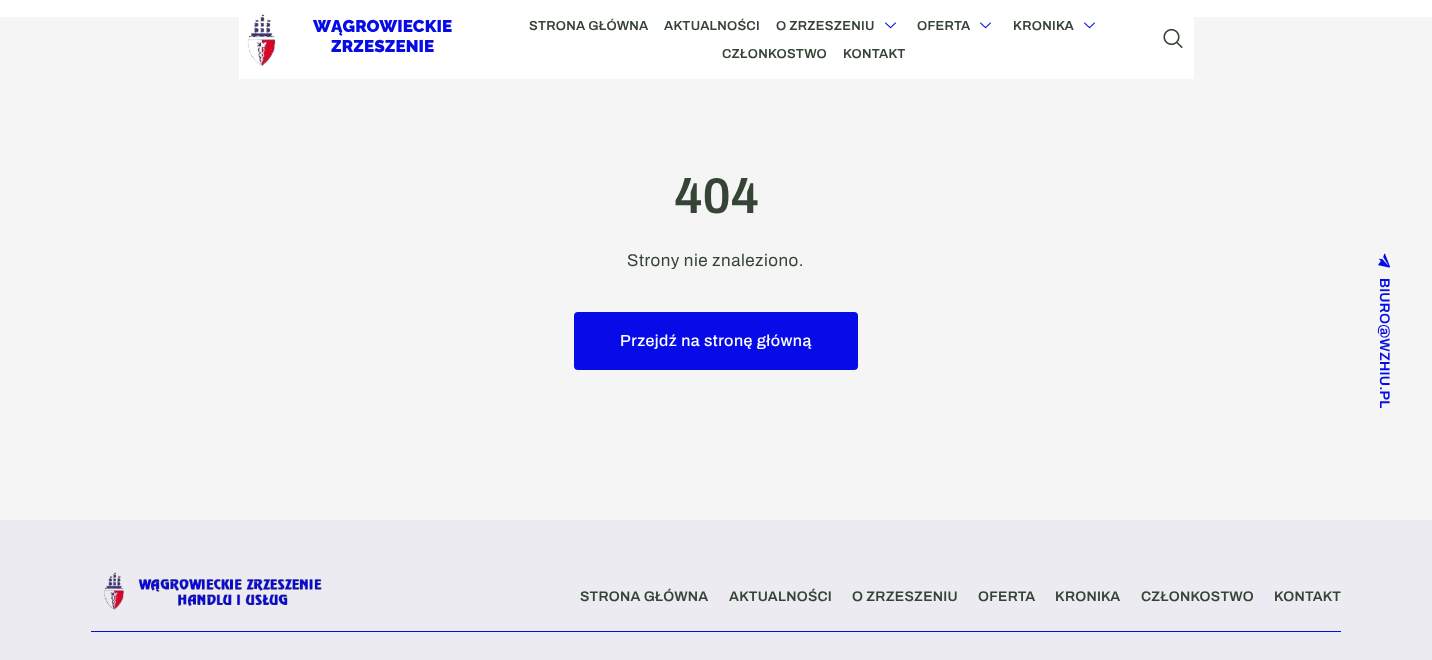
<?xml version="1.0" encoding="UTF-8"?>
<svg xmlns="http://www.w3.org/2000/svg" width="1432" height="660">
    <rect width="100%" height="100%" fill="#FFFFFF"/>
    <rect x="0" y="17" width="1432" height="503" fill="#F6F5F5"/>
    <rect x="239" y="17" width="955" height="62" fill="#FFFFFF"/>
    <image x="247" y="14" width="29" height="52" href="img_01.png"/>
    <text x="313" y="32" font-family="Raleway" font-size="17" font-weight="900" letter-spacing="0.1" fill="#060BE8">WĄGROWIECKIE</text>
    <text x="331" y="52" font-family="Raleway" font-size="17" font-weight="900" letter-spacing="0.1" fill="#060BE8">ZRZESZENIE</text>
    <text x="529" y="30" font-family="Archivo" font-size="13" font-weight="600" letter-spacing="0.25" fill="#364436">STRONA GŁÓWNA</text>
    <text x="664" y="30" font-family="Archivo" font-size="13" font-weight="600" letter-spacing="0.25" fill="#364436">AKTUALNOŚCI</text>
    <text x="776" y="30" font-family="Archivo" font-size="13" font-weight="600" letter-spacing="0.25" fill="#364436">O ZRZESZENIU</text>
    <image x="885" y="22" width="11" height="7" href="img_02.png"/>
    <text x="917" y="30" font-family="Archivo" font-size="13" font-weight="600" letter-spacing="0.25" fill="#364436">OFERTA</text>
    <image x="980" y="22" width="11" height="7" href="img_02.png"/>
    <text x="1013" y="30" font-family="Archivo" font-size="13" font-weight="600" letter-spacing="0.25" fill="#364436">KRONIKA</text>
    <image x="1084" y="22" width="11" height="7" href="img_02.png"/>
    <text x="722" y="58" font-family="Archivo" font-size="13" font-weight="600" letter-spacing="0.25" fill="#364436">CZŁONKOSTWO</text>
    <text x="843" y="58" font-family="Archivo" font-size="13" font-weight="600" letter-spacing="0.25" fill="#364436">KONTAKT</text>
    <image x="1163" y="28" width="20" height="20" href="img_03.png"/>
    <text x="674" y="213" font-family="Archivo" font-size="50" font-weight="600" letter-spacing="-0.5" fill="#364436">404</text>
    <text x="627" y="266" font-family="Archivo" font-size="17" letter-spacing="0.5" fill="#364436">Strony nie znaleziono.</text>
    <rect x="574" y="312" width="284" height="58" rx="4" fill="#060BE8"/>
    <text x="620" y="346" font-family="Archivo" font-size="16" font-weight="500" letter-spacing="0.5" fill="#FFFFFF">Przejdź na stronę główną</text>
    <image x="1378" y="253" width="12" height="15" href="img_04.png"/>
    <text x="1380" y="278" transform="rotate(90 1380 278)" font-family="Archivo" font-size="14" font-weight="600" letter-spacing="0.25" fill="#060BE8">BIURO@WZHIU.PL</text>
    <rect x="0" y="520" width="1432" height="140" fill="#EBEBF1"/>
    <rect x="91" y="631" width="1250" height="1" fill="#060BE8"/>
    <image x="104" y="572" width="218" height="38" href="img_05.png"/>
    <text x="580" y="601" font-family="Archivo" font-size="14" font-weight="600" letter-spacing="0.25" fill="#364436">STRONA GŁÓWNA</text>
    <text x="729" y="601" font-family="Archivo" font-size="14" font-weight="600" letter-spacing="0.25" fill="#364436">AKTUALNOŚCI</text>
    <text x="852" y="601" font-family="Archivo" font-size="14" font-weight="600" letter-spacing="0.25" fill="#364436">O ZRZESZENIU</text>
    <text x="978" y="601" font-family="Archivo" font-size="14" font-weight="600" letter-spacing="0.25" fill="#364436">OFERTA</text>
    <text x="1055" y="601" font-family="Archivo" font-size="14" font-weight="600" letter-spacing="0.25" fill="#364436">KRONIKA</text>
    <text x="1141" y="601" font-family="Archivo" font-size="14" font-weight="600" letter-spacing="0.25" fill="#364436">CZŁONKOSTWO</text>
    <text x="1274" y="601" font-family="Archivo" font-size="14" font-weight="600" letter-spacing="0.25" fill="#364436">KONTAKT</text>
</svg>
